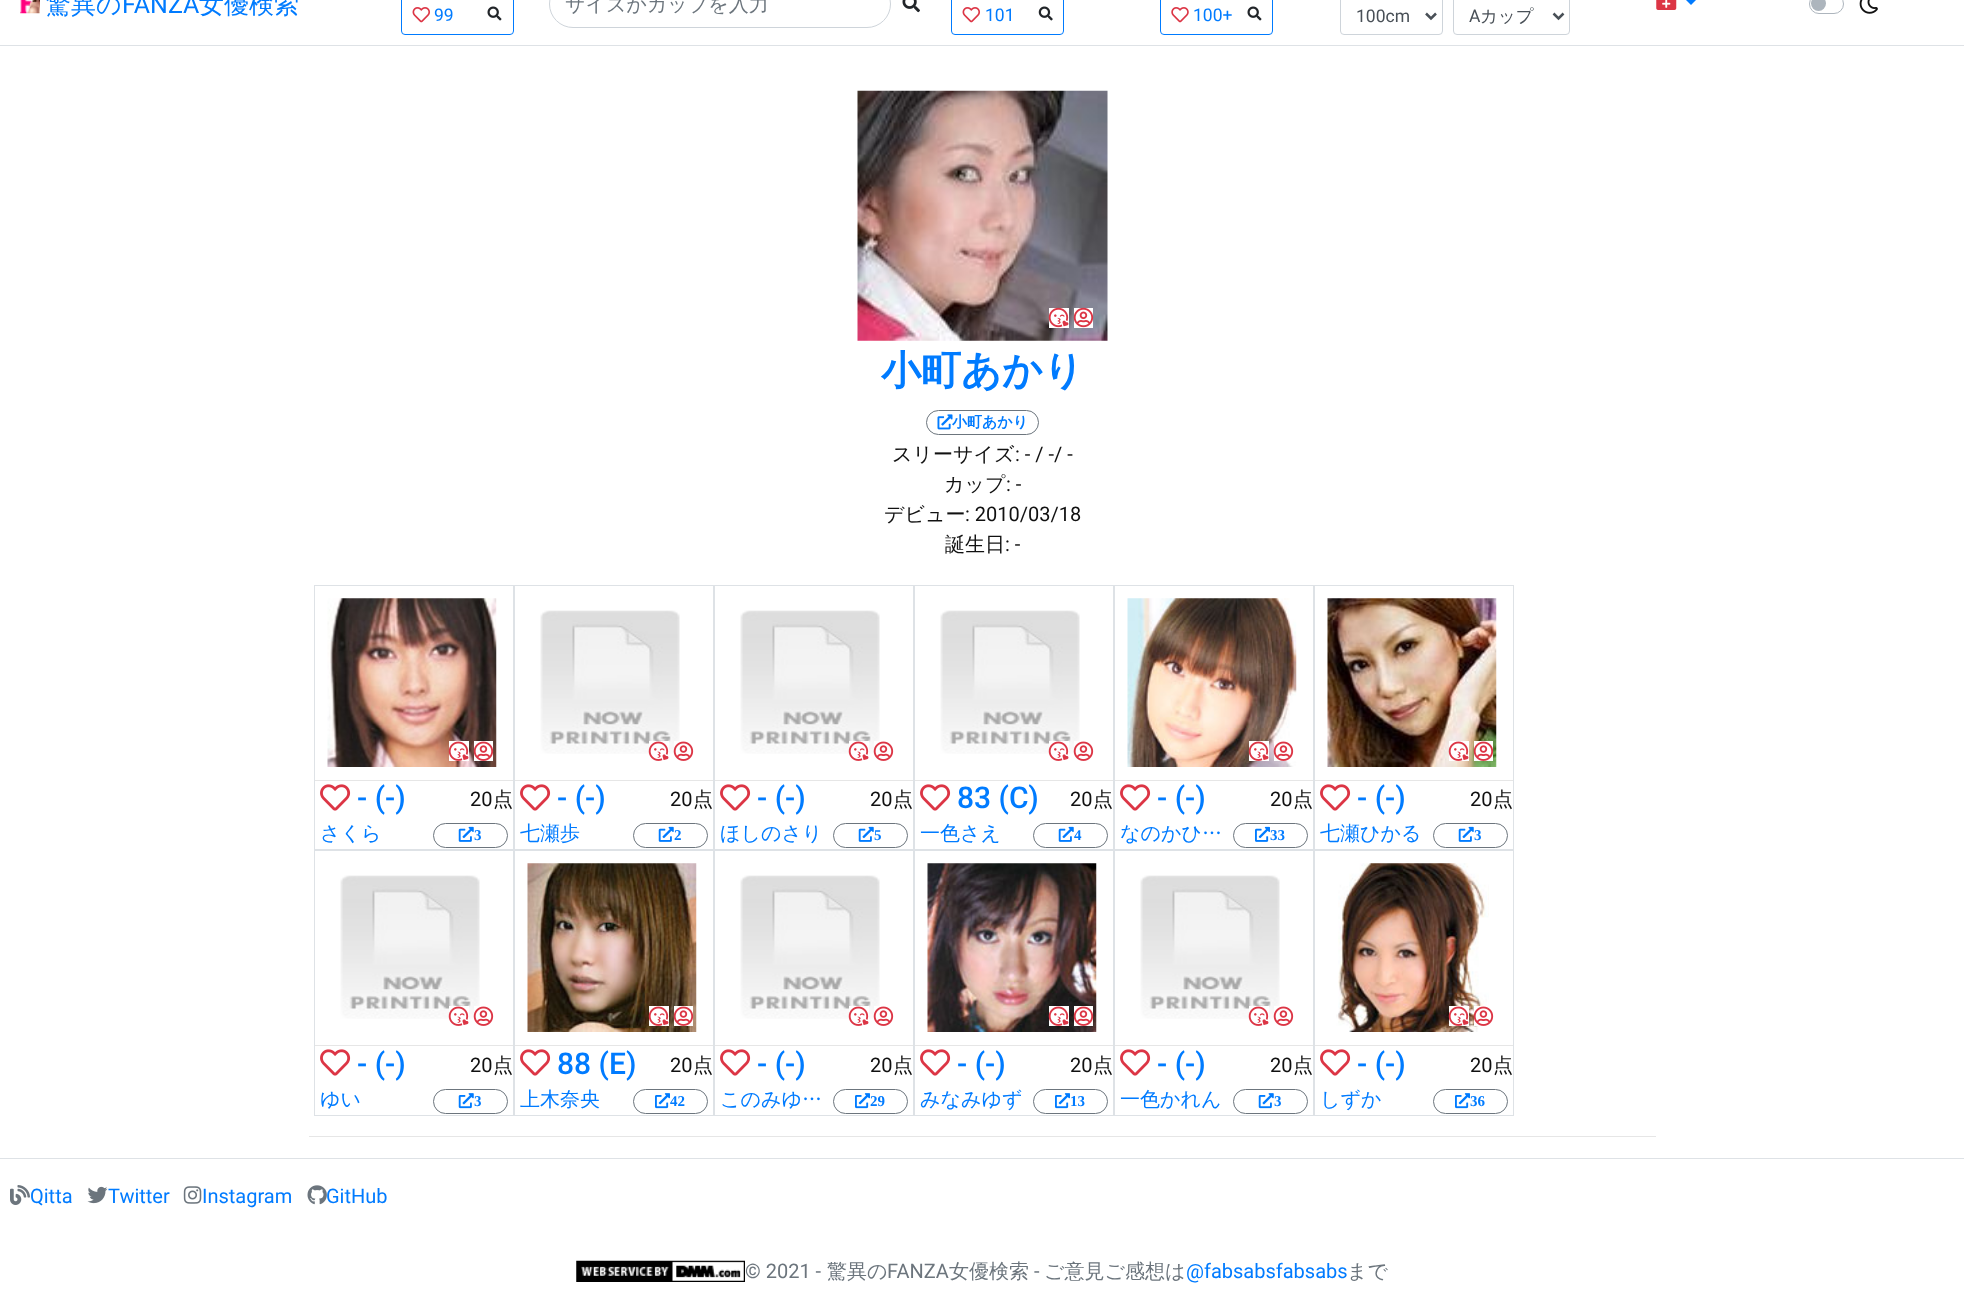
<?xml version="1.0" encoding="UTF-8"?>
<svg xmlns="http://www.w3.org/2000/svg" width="1964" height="1306">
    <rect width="100%" height="100%" fill="#FFFFFF"/>
    <rect x="0" y="45" width="1964" height="1" fill="#DEE2E6"/>
    <image x="20" y="0" width="20" height="14" href="img_01.png"/>
    <text x="46" y="13" font-family="WenQuanYi Zen Hei" font-size="25" font-weight="500" fill="#007BFF">驚異の</text>
    <text x="122" y="13" font-family="Roboto" font-size="25" fill="#007BFF">FANZA</text>
    <text x="199" y="13" font-family="WenQuanYi Zen Hei" font-size="25" font-weight="500" fill="#007BFF">女優検索</text>
    <rect x="401.5" y="-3.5" width="112" height="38" rx="3.5" fill="none" stroke="#007BFF"/>
    <image x="412" y="7" width="18" height="16" href="img_02.png"/>
    <text x="434" y="21" font-family="Roboto" font-size="17.5" fill="#007BFF">99</text>
    <image x="487" y="6" width="15" height="15" href="img_03.png"/>
    <rect x="549.5" y="-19.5" width="341" height="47" rx="23.5" fill="none" stroke="#CED4DA"/>
    <text x="565" y="11" font-family="WenQuanYi Zen Hei" font-size="20" font-weight="500" fill="#6C757D">サイズかカップを入力</text>
    <image x="902" y="0" width="18" height="13" href="img_04.png"/>
    <rect x="951.5" y="-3.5" width="112" height="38" rx="3.5" fill="none" stroke="#007BFF"/>
    <image x="962" y="7" width="18" height="16" href="img_02.png"/>
    <text x="985" y="21" font-family="Roboto" font-size="17.5" fill="#007BFF">101</text>
    <image x="1038" y="6" width="15" height="15" href="img_05.png"/>
    <rect x="1160.5" y="-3.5" width="112" height="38" rx="3.5" fill="none" stroke="#007BFF"/>
    <image x="1171" y="7" width="18" height="16" href="img_06.png"/>
    <text x="1193" y="21" font-family="Roboto" font-size="17.5" fill="#007BFF">100+</text>
    <image x="1247" y="6" width="15" height="15" href="img_03.png"/>
    <rect x="1340.5" y="-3.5" width="102" height="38" rx="3.5" fill="none" stroke="#CED4DA"/>
    <path d="M 1426 13.5 L 1431 18.5 L 1436 13.5" fill="none" stroke="#495057" stroke-width="2.5"/>
    <text x="1356" y="22" font-family="Roboto" font-size="17.5" fill="#495057">100cm</text>
    <rect x="1453.5" y="-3.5" width="116" height="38" rx="3.5" fill="none" stroke="#CED4DA"/>
    <path d="M 1553.5 13.5 L 1558.5 18.5 L 1563.5 13.5" fill="none" stroke="#495057" stroke-width="2.5"/>
    <text x="1469" y="22" font-family="Roboto" font-size="17.5" fill="#495057">A</text>
    <text x="1480" y="22" font-family="WenQuanYi Zen Hei" font-size="17.5" font-weight="500" fill="#495057">カップ</text>
    <image x="1656" y="0" width="21" height="10" href="img_07.png"/>
    <path d="M 1686 0 H 1696 L 1691 5 Z" fill="#007BFF"/>
    <rect x="1809.5" y="-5.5" width="34" height="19" rx="9.5" fill="none" stroke="#ADB5BD"/>
    <circle cx="1818.5" cy="3.5" r="7.5" fill="#ADB5BD"/>
    <image x="1859" y="0" width="19" height="14" href="img_08.png"/>
    <image x="857" y="90" width="251" height="251" href="img_09.png"/>
    <rect x="1049" y="308" width="20" height="20" fill="#FFFFFF"/>
    <image x="1048" y="307" width="21" height="21" href="img_10.png"/>
    <rect x="1074" y="308" width="19" height="20" fill="#FFFFFF"/>
    <image x="1073" y="307" width="21" height="21" href="img_11.png"/>
    <text x="881" y="384" font-family="WenQuanYi Zen Hei" font-size="40" font-weight="700" fill="#007BFF">小町あかり</text>
    <rect x="926.5" y="410.5" width="112" height="24" rx="12" fill="none" stroke="#6C757D"/>
    <image x="937" y="414" width="16" height="16" href="img_12.png"/>
    <text x="952" y="427" font-family="WenQuanYi Zen Hei" font-size="15" font-weight="700" fill="#007BFF">小町あかり</text>
    <text x="892" y="461" font-family="WenQuanYi Zen Hei" font-size="20" font-weight="500" fill="#111111">スリーサイズ</text>
    <text x="1015" y="461" font-family="Roboto" font-size="20" fill="#111111">: - / -/ -</text>
    <text x="944" y="491" font-family="WenQuanYi Zen Hei" font-size="20" font-weight="500" fill="#111111">カップ</text>
    <text x="1006" y="491" font-family="Roboto" font-size="20" fill="#111111">: -</text>
    <text x="884" y="521" font-family="WenQuanYi Zen Hei" font-size="20" font-weight="500" fill="#111111">デビュー</text>
    <text x="965" y="521" font-family="Roboto" font-size="20" fill="#111111">: 2010/03/18</text>
    <text x="945" y="551" font-family="WenQuanYi Zen Hei" font-size="20" font-weight="500" fill="#111111">誕生日</text>
    <text x="1005" y="551" font-family="Roboto" font-size="20" fill="#111111">: -</text>
    <rect x="314.5" y="585.5" width="199" height="264" fill="none" stroke="#DEE2E6"/>
    <image x="327" y="598" width="170" height="169" href="img_13.png"/>
    <rect x="449" y="741" width="20" height="20" fill="#FFFFFF"/>
    <image x="448" y="741" width="21" height="20" href="img_14.png"/>
    <rect x="474" y="741" width="19" height="20" fill="#FFFFFF"/>
    <image x="473" y="741" width="21" height="20" href="img_15.png"/>
    <rect x="315" y="780" width="198" height="1" fill="#E6E6E6"/>
    <image x="320" y="784" width="31" height="27" href="img_16.png"/>
    <text x="357" y="808" font-family="Roboto" font-size="30" font-weight="500" fill="#007BFF">- (-)</text>
    <text x="470" y="806" font-family="Roboto" font-size="20" fill="#111111">20</text>
    <text x="493" y="806" font-family="WenQuanYi Zen Hei" font-size="20" font-weight="500" fill="#111111">点</text>
    <text x="320" y="840" font-family="WenQuanYi Zen Hei" font-size="20" font-weight="500" fill="#007BFF">さくら</text>
    <rect x="433.5" y="823.5" width="74" height="24" rx="12" fill="none" stroke="#6C757D"/>
    <image x="458" y="826" width="16" height="16" href="img_17.png"/>
    <text x="474" y="840" font-family="Liberation Serif" font-size="15" font-weight="700" fill="#007BFF">3</text>
    <rect x="514.5" y="585.5" width="199" height="264" fill="none" stroke="#DEE2E6"/>
    <image x="540" y="610" width="140" height="144" href="img_18.png"/>
    <rect x="649" y="741" width="20" height="13" fill="#FFFFFF"/>
    <image x="648" y="741" width="21" height="20" href="img_19.png"/>
    <rect x="674" y="741" width="6" height="12" fill="#FFFFFF"/>
    <image x="673" y="741" width="21" height="20" href="img_20.png"/>
    <rect x="515" y="780" width="198" height="1" fill="#E6E6E6"/>
    <image x="520" y="784" width="31" height="27" href="img_16.png"/>
    <text x="557" y="808" font-family="Roboto" font-size="30" font-weight="500" fill="#007BFF">- (-)</text>
    <text x="670" y="806" font-family="Roboto" font-size="20" fill="#111111">20</text>
    <text x="693" y="806" font-family="WenQuanYi Zen Hei" font-size="20" font-weight="500" fill="#111111">点</text>
    <text x="520" y="840" font-family="WenQuanYi Zen Hei" font-size="20" font-weight="500" fill="#007BFF">七瀬歩</text>
    <rect x="633.5" y="823.5" width="74" height="24" rx="12" fill="none" stroke="#6C757D"/>
    <image x="658" y="826" width="16" height="16" href="img_17.png"/>
    <text x="674" y="840" font-family="Liberation Serif" font-size="15" font-weight="700" fill="#007BFF">2</text>
    <rect x="714.5" y="585.5" width="199" height="264" fill="none" stroke="#DEE2E6"/>
    <image x="740" y="610" width="140" height="144" href="img_21.png"/>
    <rect x="849" y="741" width="20" height="13" fill="#FFFFFF"/>
    <image x="848" y="741" width="21" height="20" href="img_19.png"/>
    <rect x="874" y="741" width="6" height="12" fill="#FFFFFF"/>
    <image x="873" y="741" width="21" height="20" href="img_20.png"/>
    <rect x="715" y="780" width="198" height="1" fill="#E6E6E6"/>
    <image x="720" y="784" width="31" height="27" href="img_16.png"/>
    <text x="757" y="808" font-family="Roboto" font-size="30" font-weight="500" fill="#007BFF">- (-)</text>
    <text x="870" y="806" font-family="Roboto" font-size="20" fill="#111111">20</text>
    <text x="893" y="806" font-family="WenQuanYi Zen Hei" font-size="20" font-weight="500" fill="#111111">点</text>
    <text x="720" y="840" font-family="WenQuanYi Zen Hei" font-size="20" font-weight="500" fill="#007BFF">ほしのさり</text>
    <rect x="833.5" y="823.5" width="74" height="24" rx="12" fill="none" stroke="#6C757D"/>
    <image x="858" y="826" width="16" height="16" href="img_17.png"/>
    <text x="874" y="840" font-family="Liberation Serif" font-size="15" font-weight="700" fill="#007BFF">5</text>
    <rect x="914.5" y="585.5" width="199" height="264" fill="none" stroke="#DEE2E6"/>
    <image x="940" y="610" width="140" height="144" href="img_21.png"/>
    <rect x="1049" y="741" width="20" height="13" fill="#FFFFFF"/>
    <image x="1048" y="741" width="21" height="20" href="img_19.png"/>
    <rect x="1074" y="741" width="6" height="12" fill="#FFFFFF"/>
    <image x="1073" y="741" width="21" height="20" href="img_20.png"/>
    <rect x="915" y="780" width="198" height="1" fill="#E6E6E6"/>
    <image x="920" y="784" width="31" height="27" href="img_16.png"/>
    <text x="957" y="808" font-family="Roboto" font-size="30" font-weight="500" fill="#007BFF">83 (C)</text>
    <text x="1070" y="806" font-family="Roboto" font-size="20" fill="#111111">20</text>
    <text x="1093" y="806" font-family="WenQuanYi Zen Hei" font-size="20" font-weight="500" fill="#111111">点</text>
    <text x="920" y="840" font-family="WenQuanYi Zen Hei" font-size="20" font-weight="500" fill="#007BFF">一色さえ</text>
    <rect x="1033.5" y="823.5" width="74" height="24" rx="12" fill="none" stroke="#6C757D"/>
    <image x="1058" y="826" width="16" height="16" href="img_17.png"/>
    <text x="1074" y="840" font-family="Liberation Serif" font-size="15" font-weight="700" fill="#007BFF">4</text>
    <rect x="1114.5" y="585.5" width="199" height="264" fill="none" stroke="#DEE2E6"/>
    <image x="1127" y="598" width="170" height="169" href="img_22.png"/>
    <rect x="1249" y="741" width="20" height="20" fill="#FFFFFF"/>
    <image x="1248" y="741" width="21" height="20" href="img_23.png"/>
    <rect x="1274" y="741" width="16" height="20" fill="#FFFFFF"/>
    <image x="1273" y="741" width="21" height="20" href="img_24.png"/>
    <rect x="1115" y="780" width="198" height="1" fill="#E6E6E6"/>
    <image x="1120" y="784" width="31" height="27" href="img_16.png"/>
    <text x="1157" y="808" font-family="Roboto" font-size="30" font-weight="500" fill="#007BFF">- (-)</text>
    <text x="1270" y="806" font-family="Roboto" font-size="20" fill="#111111">20</text>
    <text x="1293" y="806" font-family="WenQuanYi Zen Hei" font-size="20" font-weight="500" fill="#111111">点</text>
    <text x="1120" y="840" font-family="WenQuanYi Zen Hei" font-size="20" font-weight="500" fill="#007BFF">なのかひ…</text>
    <rect x="1233.5" y="823.5" width="74" height="24" rx="12" fill="none" stroke="#6C757D"/>
    <image x="1255" y="826" width="15" height="16" href="img_25.png"/>
    <text x="1270" y="840" font-family="Liberation Serif" font-size="15" font-weight="700" fill="#007BFF">33</text>
    <rect x="1314.5" y="585.5" width="199" height="264" fill="none" stroke="#DEE2E6"/>
    <image x="1327" y="598" width="170" height="169" href="img_26.png"/>
    <rect x="1449" y="741" width="20" height="20" fill="#FFFFFF"/>
    <image x="1448" y="741" width="21" height="20" href="img_27.png"/>
    <rect x="1474" y="741" width="19" height="20" fill="#FFFFFF"/>
    <image x="1473" y="741" width="21" height="20" href="img_28.png"/>
    <rect x="1315" y="780" width="198" height="1" fill="#E6E6E6"/>
    <image x="1320" y="784" width="31" height="27" href="img_16.png"/>
    <text x="1357" y="808" font-family="Roboto" font-size="30" font-weight="500" fill="#007BFF">- (-)</text>
    <text x="1470" y="806" font-family="Roboto" font-size="20" fill="#111111">20</text>
    <text x="1493" y="806" font-family="WenQuanYi Zen Hei" font-size="20" font-weight="500" fill="#111111">点</text>
    <text x="1320" y="840" font-family="WenQuanYi Zen Hei" font-size="20" font-weight="500" fill="#007BFF">七瀬ひかる</text>
    <rect x="1433.5" y="823.5" width="74" height="24" rx="12" fill="none" stroke="#6C757D"/>
    <image x="1458" y="826" width="16" height="16" href="img_17.png"/>
    <text x="1474" y="840" font-family="Liberation Serif" font-size="15" font-weight="700" fill="#007BFF">3</text>
    <rect x="314.5" y="850.5" width="199" height="265" fill="none" stroke="#DEE2E6"/>
    <image x="340" y="875" width="140" height="144" href="img_21.png"/>
    <rect x="449" y="1006" width="20" height="13" fill="#FFFFFF"/>
    <image x="448" y="1006" width="21" height="20" href="img_19.png"/>
    <rect x="474" y="1006" width="6" height="12" fill="#FFFFFF"/>
    <image x="473" y="1006" width="21" height="20" href="img_20.png"/>
    <rect x="315" y="1045" width="198" height="1" fill="#E6E6E6"/>
    <image x="320" y="1049" width="31" height="27" href="img_16.png"/>
    <text x="357" y="1074" font-family="Roboto" font-size="30" font-weight="500" fill="#007BFF">- (-)</text>
    <text x="470" y="1072" font-family="Roboto" font-size="20" fill="#111111">20</text>
    <text x="493" y="1072" font-family="WenQuanYi Zen Hei" font-size="20" font-weight="500" fill="#111111">点</text>
    <text x="320" y="1106" font-family="WenQuanYi Zen Hei" font-size="20" font-weight="500" fill="#007BFF">ゆい</text>
    <rect x="433.5" y="1089.5" width="74" height="24" rx="12" fill="none" stroke="#6C757D"/>
    <image x="458" y="1093" width="16" height="16" href="img_29.png"/>
    <text x="474" y="1106" font-family="Liberation Serif" font-size="15" font-weight="700" fill="#007BFF">3</text>
    <rect x="514.5" y="850.5" width="199" height="265" fill="none" stroke="#DEE2E6"/>
    <image x="527" y="863" width="170" height="169" href="img_30.png"/>
    <rect x="649" y="1006" width="20" height="20" fill="#FFFFFF"/>
    <image x="648" y="1006" width="21" height="20" href="img_31.png"/>
    <rect x="674" y="1006" width="19" height="20" fill="#FFFFFF"/>
    <image x="673" y="1006" width="21" height="20" href="img_32.png"/>
    <rect x="515" y="1045" width="198" height="1" fill="#E6E6E6"/>
    <image x="520" y="1049" width="31" height="27" href="img_16.png"/>
    <text x="557" y="1074" font-family="Roboto" font-size="30" font-weight="500" fill="#007BFF">88 (E)</text>
    <text x="670" y="1072" font-family="Roboto" font-size="20" fill="#111111">20</text>
    <text x="693" y="1072" font-family="WenQuanYi Zen Hei" font-size="20" font-weight="500" fill="#111111">点</text>
    <text x="520" y="1106" font-family="WenQuanYi Zen Hei" font-size="20" font-weight="500" fill="#007BFF">上木奈央</text>
    <rect x="633.5" y="1089.5" width="74" height="24" rx="12" fill="none" stroke="#6C757D"/>
    <image x="655" y="1093" width="15" height="16" href="img_33.png"/>
    <text x="670" y="1106" font-family="Liberation Serif" font-size="15" font-weight="700" fill="#007BFF">42</text>
    <rect x="714.5" y="850.5" width="199" height="265" fill="none" stroke="#DEE2E6"/>
    <image x="740" y="875" width="140" height="144" href="img_21.png"/>
    <rect x="849" y="1006" width="20" height="13" fill="#FFFFFF"/>
    <image x="848" y="1006" width="21" height="20" href="img_19.png"/>
    <rect x="874" y="1006" width="6" height="12" fill="#FFFFFF"/>
    <image x="873" y="1006" width="21" height="20" href="img_20.png"/>
    <rect x="715" y="1045" width="198" height="1" fill="#E6E6E6"/>
    <image x="720" y="1049" width="31" height="27" href="img_16.png"/>
    <text x="757" y="1074" font-family="Roboto" font-size="30" font-weight="500" fill="#007BFF">- (-)</text>
    <text x="870" y="1072" font-family="Roboto" font-size="20" fill="#111111">20</text>
    <text x="893" y="1072" font-family="WenQuanYi Zen Hei" font-size="20" font-weight="500" fill="#111111">点</text>
    <text x="720" y="1106" font-family="WenQuanYi Zen Hei" font-size="20" font-weight="500" fill="#007BFF">このみゆ…</text>
    <rect x="833.5" y="1089.5" width="74" height="24" rx="12" fill="none" stroke="#6C757D"/>
    <image x="855" y="1093" width="15" height="16" href="img_33.png"/>
    <text x="870" y="1106" font-family="Liberation Serif" font-size="15" font-weight="700" fill="#007BFF">29</text>
    <rect x="914.5" y="850.5" width="199" height="265" fill="none" stroke="#DEE2E6"/>
    <image x="927" y="863" width="170" height="169" href="img_34.png"/>
    <rect x="1049" y="1006" width="20" height="20" fill="#FFFFFF"/>
    <image x="1048" y="1006" width="21" height="20" href="img_35.png"/>
    <rect x="1074" y="1006" width="19" height="20" fill="#FFFFFF"/>
    <image x="1073" y="1006" width="21" height="20" href="img_36.png"/>
    <rect x="915" y="1045" width="198" height="1" fill="#E6E6E6"/>
    <image x="920" y="1049" width="31" height="27" href="img_16.png"/>
    <text x="957" y="1074" font-family="Roboto" font-size="30" font-weight="500" fill="#007BFF">- (-)</text>
    <text x="1070" y="1072" font-family="Roboto" font-size="20" fill="#111111">20</text>
    <text x="1093" y="1072" font-family="WenQuanYi Zen Hei" font-size="20" font-weight="500" fill="#111111">点</text>
    <text x="920" y="1106" font-family="WenQuanYi Zen Hei" font-size="20" font-weight="500" fill="#007BFF">みなみゆず</text>
    <rect x="1033.5" y="1089.5" width="74" height="24" rx="12" fill="none" stroke="#6C757D"/>
    <image x="1055" y="1093" width="15" height="16" href="img_33.png"/>
    <text x="1070" y="1106" font-family="Liberation Serif" font-size="15" font-weight="700" fill="#007BFF">13</text>
    <rect x="1114.5" y="850.5" width="199" height="265" fill="none" stroke="#DEE2E6"/>
    <image x="1140" y="875" width="140" height="144" href="img_37.png"/>
    <rect x="1249" y="1006" width="20" height="13" fill="#FFFFFF"/>
    <image x="1248" y="1006" width="21" height="20" href="img_19.png"/>
    <rect x="1274" y="1006" width="6" height="12" fill="#FFFFFF"/>
    <image x="1273" y="1006" width="21" height="20" href="img_20.png"/>
    <rect x="1115" y="1045" width="198" height="1" fill="#E6E6E6"/>
    <image x="1120" y="1049" width="31" height="27" href="img_16.png"/>
    <text x="1157" y="1074" font-family="Roboto" font-size="30" font-weight="500" fill="#007BFF">- (-)</text>
    <text x="1270" y="1072" font-family="Roboto" font-size="20" fill="#111111">20</text>
    <text x="1293" y="1072" font-family="WenQuanYi Zen Hei" font-size="20" font-weight="500" fill="#111111">点</text>
    <text x="1120" y="1106" font-family="WenQuanYi Zen Hei" font-size="20" font-weight="500" fill="#007BFF">一色かれん</text>
    <rect x="1233.5" y="1089.5" width="74" height="24" rx="12" fill="none" stroke="#6C757D"/>
    <image x="1258" y="1093" width="16" height="16" href="img_29.png"/>
    <text x="1274" y="1106" font-family="Liberation Serif" font-size="15" font-weight="700" fill="#007BFF">3</text>
    <rect x="1314.5" y="850.5" width="199" height="265" fill="none" stroke="#DEE2E6"/>
    <image x="1336" y="863" width="153" height="169" href="img_38.png"/>
    <rect x="1449" y="1006" width="20" height="20" fill="#FFFFFF"/>
    <image x="1448" y="1006" width="21" height="20" href="img_39.png"/>
    <rect x="1474" y="1006" width="15" height="20" fill="#FFFFFF"/>
    <image x="1473" y="1006" width="21" height="20" href="img_40.png"/>
    <rect x="1315" y="1045" width="198" height="1" fill="#E6E6E6"/>
    <image x="1320" y="1049" width="31" height="27" href="img_16.png"/>
    <text x="1357" y="1074" font-family="Roboto" font-size="30" font-weight="500" fill="#007BFF">- (-)</text>
    <text x="1470" y="1072" font-family="Roboto" font-size="20" fill="#111111">20</text>
    <text x="1493" y="1072" font-family="WenQuanYi Zen Hei" font-size="20" font-weight="500" fill="#111111">点</text>
    <text x="1320" y="1106" font-family="WenQuanYi Zen Hei" font-size="20" font-weight="500" fill="#007BFF">しずか</text>
    <rect x="1433.5" y="1089.5" width="74" height="24" rx="12" fill="none" stroke="#6C757D"/>
    <image x="1455" y="1093" width="15" height="16" href="img_33.png"/>
    <text x="1470" y="1106" font-family="Liberation Serif" font-size="15" font-weight="700" fill="#007BFF">36</text>
    <rect x="309" y="1136" width="1347" height="1" fill="#E6E6E6"/>
    <rect x="0" y="1158" width="1964" height="1" fill="#DEE2E6"/>
    <image x="10" y="1185" width="20" height="20" href="img_41.png"/>
    <text x="30" y="1203" font-family="Roboto" font-size="20" fill="#007BFF">Qitta</text>
    <image x="87" y="1186" width="21" height="18" href="img_42.png"/>
    <text x="108" y="1203" font-family="Roboto" font-size="20" fill="#007BFF">Twitter</text>
    <image x="183" y="1186" width="19" height="18" href="img_43.png"/>
    <text x="202" y="1203" font-family="Roboto" font-size="20" fill="#007BFF">Instagram</text>
    <image x="307" y="1185" width="20" height="20" href="img_44.png"/>
    <text x="326" y="1203" font-family="Roboto" font-size="20" fill="#007BFF">GitHub</text>
    <image x="576" y="1260" width="169" height="22" href="img_45.png"/>
    <text x="745" y="1278" font-family="Roboto" font-size="20" fill="#6C757D">© 2021 -</text>
    <text x="827" y="1278" font-family="WenQuanYi Zen Hei" font-size="20" font-weight="500" fill="#6C757D">驚異の</text>
    <text x="887" y="1278" font-family="Roboto" font-size="20" fill="#6C757D">FANZA</text>
    <text x="949" y="1278" font-family="WenQuanYi Zen Hei" font-size="20" font-weight="500" fill="#6C757D">女優検索</text>
    <text x="1034" y="1278" font-family="Roboto" font-size="20" fill="#6C757D">-</text>
    <text x="1044" y="1278" font-family="WenQuanYi Zen Hei" font-size="20" font-weight="500" fill="#6C757D">ご意見ご感想は</text>
    <text x="1186" y="1278" font-family="Roboto" font-size="20" fill="#007BFF">@fabsabsfabsabs</text>
    <text x="1347" y="1278" font-family="WenQuanYi Zen Hei" font-size="20" font-weight="500" fill="#6C757D">まで</text>
</svg>
